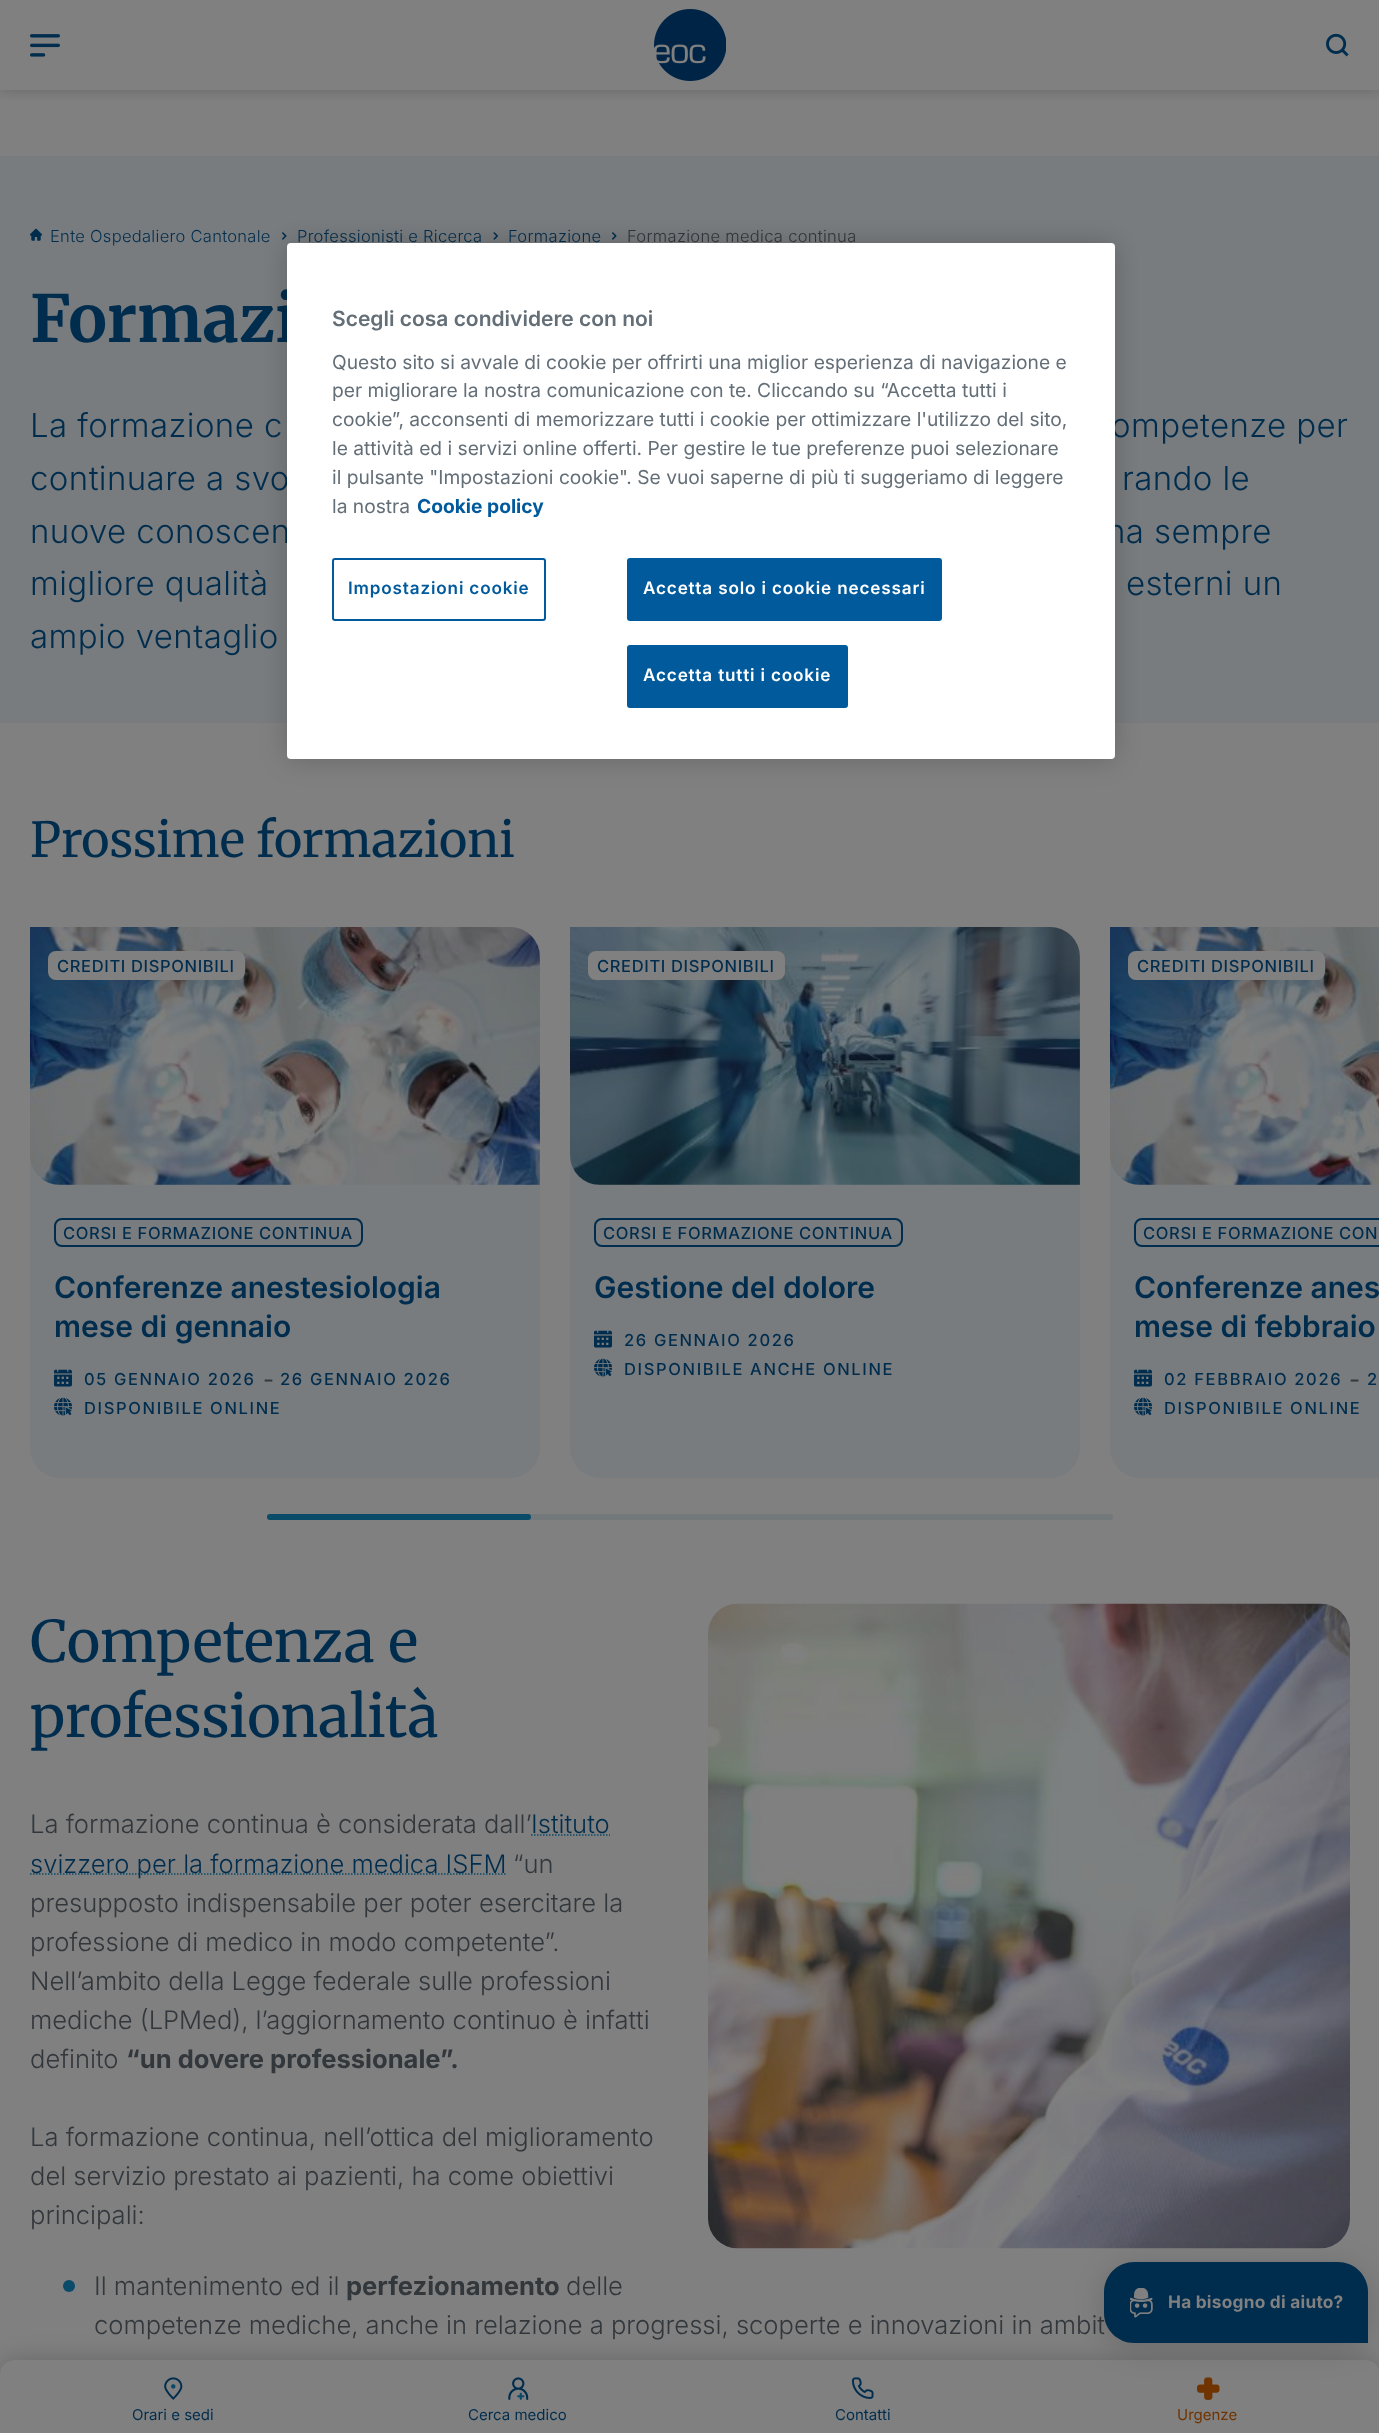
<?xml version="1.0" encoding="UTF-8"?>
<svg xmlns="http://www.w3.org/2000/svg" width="1379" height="2433">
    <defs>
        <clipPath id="clip1"><rect x="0" y="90" width="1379" height="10"/></clipPath>
        <filter id="blur1" x="-50%" y="-200%" width="200%" height="500%"><feGaussianBlur stdDeviation="7.5"/></filter>
        <filter id="blur2" x="-50%" y="-200%" width="200%" height="500%"><feGaussianBlur stdDeviation="12"/></filter>
        <filter id="blur3" x="-50%" y="-200%" width="200%" height="500%"><feGaussianBlur stdDeviation="15"/></filter>
        <filter id="blur4" x="-50%" y="-200%" width="200%" height="500%"><feGaussianBlur stdDeviation="13.5"/></filter>
    </defs>
    <rect width="100%" height="100%" fill="#808080"/>
    <g clip-path="url(#clip1)">
        <rect x="0" y="0" width="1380" height="90" fill="#000000" fill-opacity="0.2" filter="url(#blur1)"/>
    </g>
    <image x="30" y="34" width="30" height="23" href="img_01.png"/>
    <image x="654" y="9" width="72" height="72" href="img_02.png"/>
    <image x="1326" y="33" width="23" height="24" href="img_03.png"/>
    <rect x="0" y="156" width="1379" height="567" fill="#797C7E"/>
    <image x="30" y="228" width="12" height="13" href="img_04.png"/>
    <text x="50" y="242" font-family="Inter" font-size="16.5" font-weight="300" letter-spacing="0.3" fill="#002D4E">Ente Ospedaliero Cantonale</text>
    <image x="282" y="232" width="5" height="8" href="img_05.png"/>
    <text x="297" y="242" font-family="Inter" font-size="16.5" font-weight="300" letter-spacing="0.3" fill="#002D4E">Professionisti e Ricerca</text>
    <image x="493" y="232" width="5" height="8" href="img_06.png"/>
    <text x="508" y="242" font-family="Inter" font-size="16.5" font-weight="300" letter-spacing="0.3" fill="#002D4E">Formazione</text>
    <image x="612" y="232" width="5" height="8" href="img_05.png"/>
    <text x="627" y="242" font-family="Inter" font-size="16.5" font-weight="300" letter-spacing="0.3" fill="#32373C">Formazione medica continua</text>
    <text x="30" y="342" font-family="Merriweather" font-size="65" font-weight="700" fill="#002D4E">Formazi</text>
    <text x="30" y="437" font-family="Inter" font-size="33" font-weight="300" letter-spacing="0.4" fill="#002D4E">La formazione c</text>
    <text x="1111" y="437" font-family="Inter" font-size="33" font-weight="300" letter-spacing="0.4" fill="#002D4E">ompetenze per</text>
    <text x="30" y="490" font-family="Inter" font-size="33" font-weight="300" letter-spacing="0.4" fill="#002D4E">continuare a svo</text>
    <text x="1122" y="490" font-family="Inter" font-size="33" font-weight="300" letter-spacing="0.4" fill="#002D4E">rando le</text>
    <text x="30" y="543" font-family="Inter" font-size="33" font-weight="300" letter-spacing="0.4" fill="#002D4E">nuove conoscen</text>
    <text x="1106" y="543" font-family="Inter" font-size="33" font-weight="300" letter-spacing="0.4" fill="#002D4E">na sempre</text>
    <text x="30" y="595" font-family="Inter" font-size="33" font-weight="300" letter-spacing="0.4" fill="#002D4E">migliore qualità</text>
    <text x="1126" y="595" font-family="Inter" font-size="33" font-weight="300" letter-spacing="0.4" fill="#002D4E">esterni un</text>
    <text x="30" y="648" font-family="Inter" font-size="33" font-weight="300" letter-spacing="0.4" fill="#002D4E">ampio ventaglio</text>
    <text x="30" y="857" font-family="Merriweather" font-size="48.25" fill="#002D4E">Prossime formazioni</text>
    <path d="M 30 927 H 510 C 526.5 927 540 940.5 540 957 V 1448 C 540 1464.5 526.5 1478 510 1478 H 60 C 43.5 1478 30 1464.5 30 1448 Z" fill="#797C7E"/>
    <image x="30" y="927" width="510" height="258" href="img_07.png"/>
    <rect x="48" y="951" width="197" height="29" rx="8" fill="#808080"/>
    <text x="57" y="972" font-family="Inter" font-size="16.5" font-weight="500" letter-spacing="0.65" fill="#002D4E">CREDITI DISPONIBILI</text>
    <rect x="55" y="1219" width="307" height="27" rx="7" fill="none" stroke="#002D4E" stroke-width="2"/>
    <text x="63" y="1239" font-family="Inter" font-size="16.5" font-weight="500" letter-spacing="0.65" fill="#002D4E">CORSI E FORMAZIONE CONTINUA</text>
    <text font-family="Inter" font-size="30" font-weight="600" fill="#002D4E">
        <tspan x="54" y="1298">Conferenze anestesiologia</tspan>
        <tspan x="54" y="1337">mese di gennaio</tspan>
    </text>
    <image x="54" y="1369" width="18" height="18" href="img_08.png"/>
    <text x="84" y="1385" font-family="Inter" font-size="16.5" font-weight="500" letter-spacing="1.65" fill="#002D4E">05 GENNAIO 2026</text>
    <text x="263" y="1388" font-family="Inter" font-size="24" fill="#32373C">-</text>
    <text x="280" y="1385" font-family="Inter" font-size="16.5" font-weight="500" letter-spacing="1.65" fill="#002D4E">26 GENNAIO 2026</text>
    <image x="54" y="1397" width="18" height="19" href="img_09.png"/>
    <text x="84" y="1414" font-family="Inter" font-size="16.5" font-weight="500" letter-spacing="1.65" fill="#002D4E">DISPONIBILE ONLINE</text>
    <path d="M 570 927 H 1050 C 1066.5 927 1080 940.5 1080 957 V 1448 C 1080 1464.5 1066.5 1478 1050 1478 H 600 C 583.5 1478 570 1464.5 570 1448 Z" fill="#797C7E"/>
    <image x="570" y="927" width="510" height="258" href="img_10.png"/>
    <rect x="588" y="951" width="197" height="29" rx="8" fill="#808080"/>
    <text x="597" y="972" font-family="Inter" font-size="16.5" font-weight="500" letter-spacing="0.65" fill="#002D4E">CREDITI DISPONIBILI</text>
    <rect x="595" y="1219" width="307" height="27" rx="7" fill="none" stroke="#002D4E" stroke-width="2"/>
    <text x="603" y="1239" font-family="Inter" font-size="16.5" font-weight="500" letter-spacing="0.65" fill="#002D4E">CORSI E FORMAZIONE CONTINUA</text>
    <text x="594" y="1298" font-family="Inter" font-size="30" font-weight="600" fill="#002D4E">Gestione del dolore</text>
    <image x="594" y="1330" width="18" height="18" href="img_08.png"/>
    <text x="624" y="1346" font-family="Inter" font-size="16.5" font-weight="500" letter-spacing="1.65" fill="#002D4E">26 GENNAIO 2026</text>
    <image x="594" y="1358" width="18" height="19" href="img_09.png"/>
    <text x="624" y="1375" font-family="Inter" font-size="16.5" font-weight="500" letter-spacing="1.65" fill="#002D4E">DISPONIBILE ANCHE ONLINE</text>
    <path d="M 1110 927 H 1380 V 1478 H 1140 C 1123.5 1478 1110 1464.5 1110 1448 Z" fill="#797C7E"/>
    <image x="1110" y="927" width="269" height="258" href="img_11.png"/>
    <rect x="1128" y="951" width="197" height="29" rx="8" fill="#808080"/>
    <text x="1137" y="972" font-family="Inter" font-size="16.5" font-weight="500" letter-spacing="0.65" fill="#002D4E">CREDITI DISPONIBILI</text>
    <rect x="1135" y="1219" width="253" height="27" rx="7" fill="none" stroke="#002D4E" stroke-width="2"/>
    <text x="1143" y="1239" font-family="Inter" font-size="16.5" font-weight="500" letter-spacing="0.65" fill="#002D4E">CORSI E FORMAZIONE CON</text>
    <text font-family="Inter" font-size="30" font-weight="600" fill="#002D4E">
        <tspan x="1134" y="1298">Conferenze anes</tspan>
        <tspan x="1134" y="1337">mese di febbraio</tspan>
    </text>
    <image x="1134" y="1369" width="18" height="18" href="img_08.png"/>
    <text x="1164" y="1385" font-family="Inter" font-size="16.5" font-weight="500" letter-spacing="1.65" fill="#002D4E">02 FEBBRAIO 2026</text>
    <text x="1349" y="1388" font-family="Inter" font-size="24" fill="#32373C">-</text>
    <text x="1367" y="1385" font-family="Inter" font-size="16.5" font-weight="500" letter-spacing="1.65" fill="#002D4E">2</text>
    <image x="1134" y="1397" width="18" height="19" href="img_09.png"/>
    <text x="1164" y="1414" font-family="Inter" font-size="16.5" font-weight="500" letter-spacing="1.65" fill="#002D4E">DISPONIBILE ONLINE</text>
    <rect x="267" y="1514" width="846" height="6" rx="3" fill="#73787B"/>
    <rect x="267" y="1514" width="264" height="6" rx="3" fill="#094B69"/>
    <text font-family="Merriweather" font-size="57.25" fill="#002D4E">
        <tspan x="30" y="1662">Competenza e</tspan>
        <tspan x="30" y="1737">professionalità</tspan>
    </text>
    <image x="708" y="1603" width="642" height="646" href="img_12.png"/>
    <text x="30" y="1833" font-family="Inter" font-size="25.55" font-weight="300" fill="#32373C">La formazione continua è considerata dall’</text>
    <text x="531" y="1833" font-family="Inter" font-size="25.55" font-weight="300" fill="#002D4E">Istituto</text>
    <path d="M 531 1835 H 610" fill="none" stroke="#094B69" stroke-width="1.5" stroke-dasharray="1.5 1.5"/>
    <path d="M 30 1874 H 506" fill="none" stroke="#094B69" stroke-width="1.5" stroke-dasharray="1.5 1.5"/>
    <text x="30" y="1873" font-family="Inter" font-size="25.55" font-weight="300" fill="#002D4E">svizzero per la formazione medica ISFM</text>
    <text x="513" y="1873" font-family="Inter" font-size="25.55" font-weight="300" fill="#32373C">“un</text>
    <text font-family="Inter" font-size="25.55" font-weight="300" fill="#32373C">
        <tspan x="30" y="1912">presupposto indispensabile per poter esercitare la</tspan>
        <tspan x="30" y="1951">professione di medico in modo competente”.</tspan>
        <tspan x="30" y="1990">Nell’ambito della Legge federale sulle professioni</tspan>
        <tspan x="30" y="2029">mediche (LPMed), l’aggiornamento continuo è infatti</tspan>
        <tspan x="30" y="2068">definito</tspan>
    </text>
    <text x="126" y="2068" font-family="Inter" font-size="25.55" font-weight="700" fill="#32373C">“un dovere professionale”.</text>
    <text font-family="Inter" font-size="25.55" font-weight="300" fill="#32373C">
        <tspan x="30" y="2146">La formazione continua, nell’ottica del miglioramento</tspan>
        <tspan x="30" y="2185">del servizio prestato ai pazienti, ha come obiettivi</tspan>
        <tspan x="30" y="2224">principali:</tspan>
    </text>
    <circle cx="69" cy="2286" r="6" fill="#094B69"/>
    <text x="94" y="2295" font-family="Inter" font-size="25.55" font-weight="300" fill="#32373C">Il mantenimento ed il</text>
    <text x="346" y="2295" font-family="Inter" font-size="25.55" font-weight="700" fill="#32373C">perfezionamento</text>
    <text x="566" y="2295" font-family="Inter" font-size="25.55" font-weight="300" fill="#32373C">delle</text>
    <text x="94" y="2334" font-family="Inter" font-size="25.55" font-weight="300" fill="#32373C">competenze mediche, anche in relazione a progressi, scoperte e innovazioni in ambit</text>
    <rect x="0" y="2360" width="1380" height="73" rx="15" fill="#000000" fill-opacity="0.2" filter="url(#blur2)"/>
    <path d="M 15 2360 H 1365 C 1373.5 2360 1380 2366.5 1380 2375 V 2433 H 0 V 2375 C 0 2366.5 6.5 2360 15 2360 Z" fill="#808080"/>
    <image x="1197" y="2377" width="23" height="23" href="img_19.png"/>
    <rect x="1104" y="2267" width="264" height="81" rx="30" fill="#000000" fill-opacity="0.16" filter="url(#blur3)"/>
    <path d="M 1134 2262 H 1338 C 1354.5 2262 1368 2275.5 1368 2292 V 2343 H 1134 C 1117.5 2343 1104 2329.5 1104 2313 V 2292 C 1104 2275.5 1117.5 2262 1134 2262 Z" fill="#002D4E"/>
    <image x="1130" y="2288" width="23" height="30" href="img_13.png"/>
    <text x="1168" y="2308" font-family="Inter" font-size="17.25" font-weight="700" letter-spacing="0.25" fill="#808080">Ha bisogno di aiuto?</text>
    <image x="164" y="2377" width="19" height="23" href="img_14.png"/>
    <image x="171" y="2384" width="5" height="5" href="img_15.png"/>
    <text x="132" y="2420" font-family="Inter" font-size="15" fill="#002D4E">Orari e sedi</text>
    <image x="508" y="2377" width="21" height="23" href="img_16.png"/>
    <image x="517" y="2392" width="8" height="8" href="img_17.png"/>
    <text x="468" y="2420" font-family="Inter" font-size="15" fill="#002D4E">Cerca medico</text>
    <image x="852" y="2377" width="22" height="22" href="img_18.png"/>
    <text x="835" y="2420" font-family="Inter" font-size="15" fill="#002D4E">Contatti</text>
    <text x="1177" y="2420" font-family="Inter" font-size="15" fill="#6F3400">Urgenze</text>
    <rect x="287" y="243" width="828" height="516" rx="4" fill="#000000" fill-opacity="0.2" filter="url(#blur4)"/>
    <rect x="287" y="243" width="828" height="516" rx="4" fill="#FFFFFF"/>
    <text x="332" y="326" font-family="Inter" font-size="21" font-weight="600" fill="#636E77">Scegli cosa condividere con noi</text>
    <text font-family="Inter" font-size="19.2" fill="#636E77">
        <tspan x="332" y="369">Questo sito si avvale di cookie per offrirti una miglior esperienza di navigazione e</tspan>
        <tspan x="332" y="397">per migliorare la nostra comunicazione con te. Cliccando su “Accetta tutti i</tspan>
        <tspan x="332" y="426">cookie”, acconsenti di memorizzare tutti i cookie per ottimizzare l'utilizzo del sito,</tspan>
        <tspan x="332" y="455">le attività ed i servizi online offerti. Per gestire le tue preferenze puoi selezionare</tspan>
        <tspan x="332" y="484">il pulsante "Impostazioni cookie". Se vuoi saperne di più ti suggeriamo di leggere</tspan>
        <tspan x="332" y="513">la nostra</tspan>
    </text>
    <text x="417" y="513" font-family="Inter" font-size="19.2" font-weight="700" fill="#005A9C">Cookie policy</text>
    <rect x="333" y="559" width="212" height="61" rx="2" fill="none" stroke="#005A9C" stroke-width="2"/>
    <text x="348" y="594" font-family="Inter" font-size="17.1" font-weight="600" letter-spacing="0.85" fill="#005A9C">Impostazioni cookie</text>
    <rect x="628" y="559" width="313" height="61" rx="2" fill="#005A9C" stroke="#005A9C" stroke-width="2"/>
    <text x="643" y="594" font-family="Inter" font-size="17.1" font-weight="600" letter-spacing="0.85" fill="#FFFFFF">Accetta solo i cookie necessari</text>
    <rect x="628" y="646" width="219" height="61" rx="2" fill="#005A9C" stroke="#005A9C" stroke-width="2"/>
    <text x="643" y="681" font-family="Inter" font-size="17.1" font-weight="600" letter-spacing="0.85" fill="#FFFFFF">Accetta tutti i cookie</text>
</svg>
